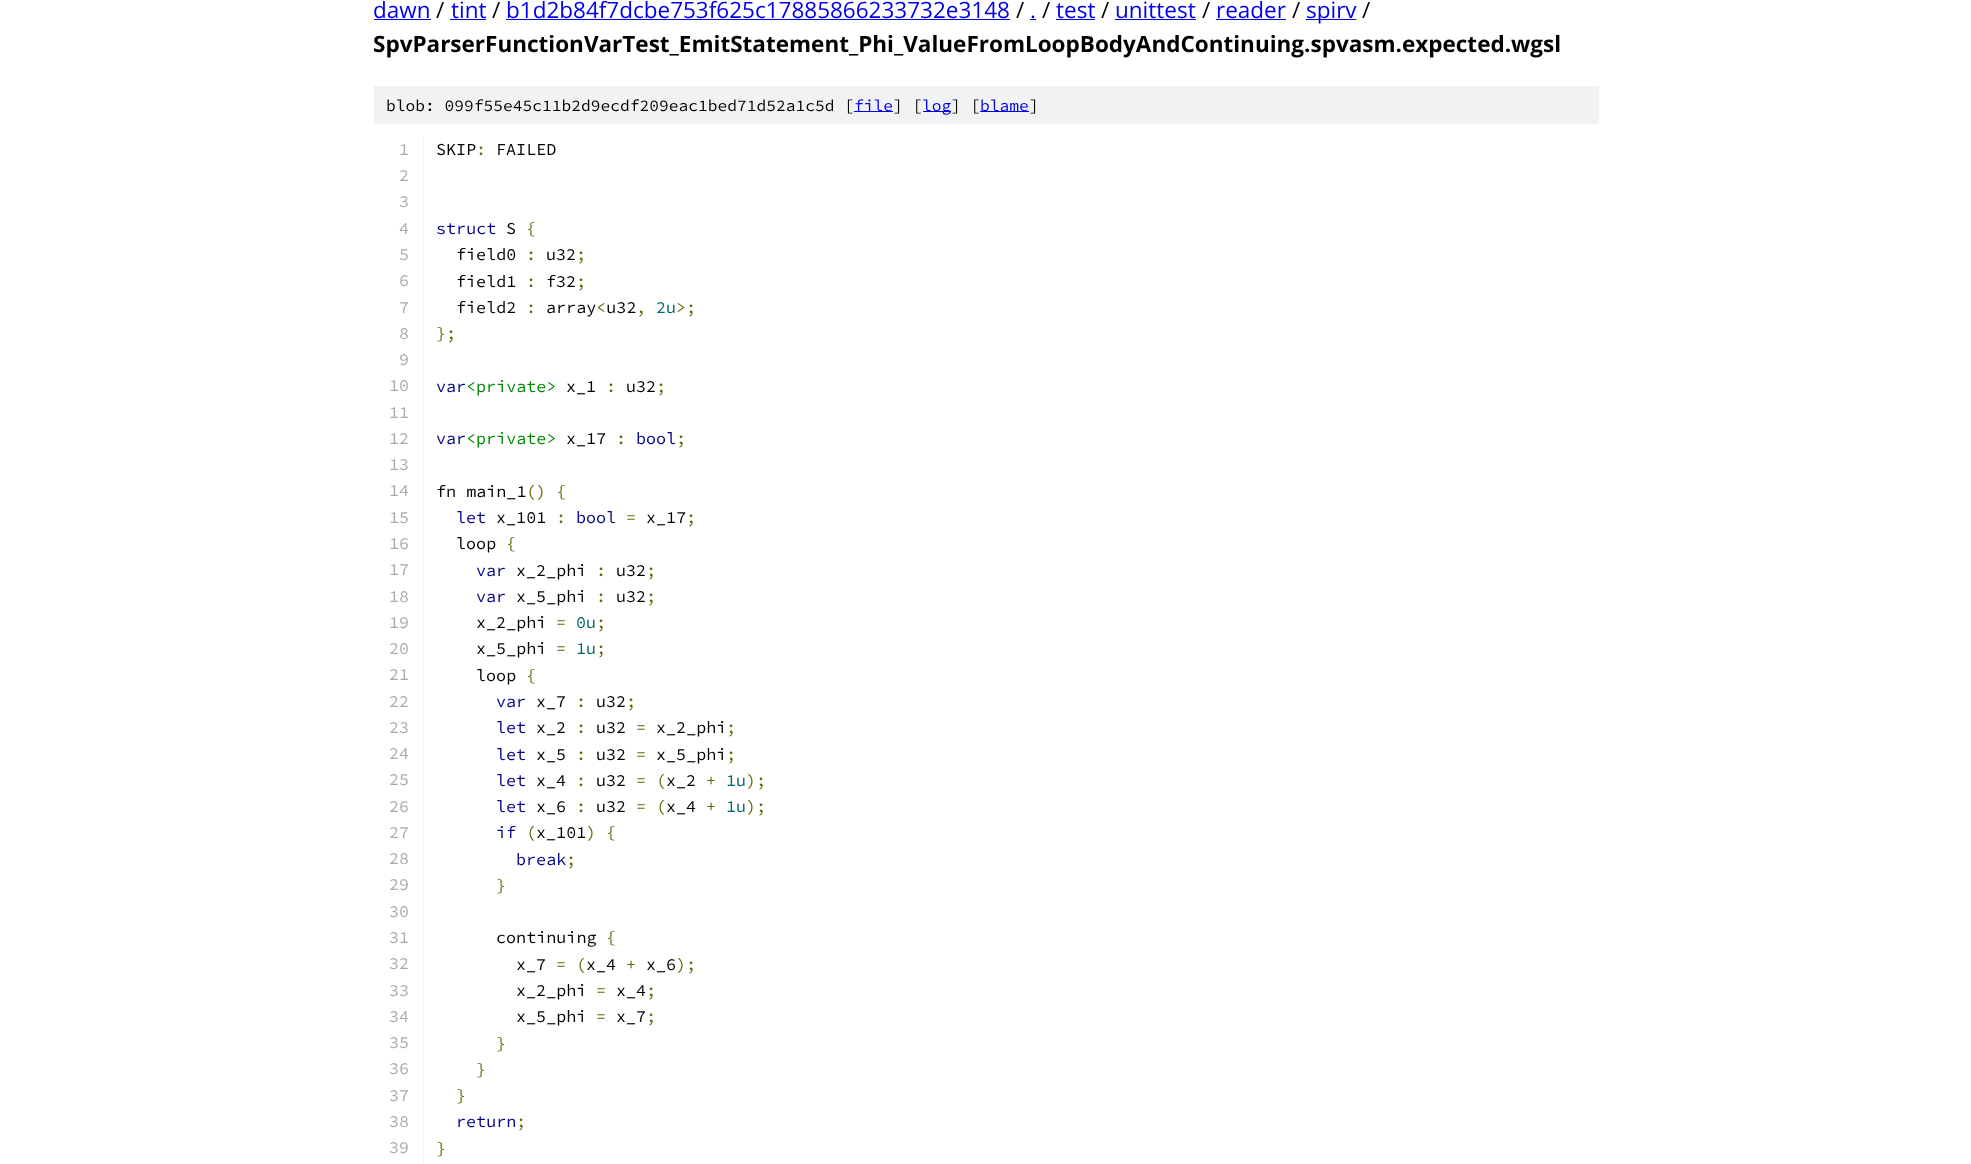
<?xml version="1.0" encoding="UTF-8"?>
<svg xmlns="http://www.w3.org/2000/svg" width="1971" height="1164">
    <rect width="100%" height="100%" fill="#FFFFFF"/>
    <text x="373" y="18" font-family="Open Sans" font-size="22.5" fill="#0000EE">dawn</text>
    <rect x="374" y="19" width="57" height="1" fill="#0000EE"/>
    <text x="436" y="18" font-family="Open Sans" font-size="22.5" fill="#000000">/</text>
    <text x="451" y="18" font-family="Open Sans" font-size="22.5" fill="#0000EE">tint</text>
    <rect x="450" y="19" width="36" height="1" fill="#0000EE"/>
    <text x="492" y="18" font-family="Open Sans" font-size="22.5" fill="#000000">/</text>
    <text x="506" y="18" font-family="Open Sans" font-size="22.5" fill="#0000EE">b1d2b84f7dcbe753f625c17885866233732e3148</text>
    <rect x="506" y="19" width="504" height="1" fill="#0000EE"/>
    <text x="1016" y="18" font-family="Open Sans" font-size="22.5" fill="#000000">/</text>
    <text x="1030" y="18" font-family="Open Sans" font-size="22.5" fill="#0000EE">.</text>
    <rect x="1030" y="19" width="6" height="1" fill="#0000EE"/>
    <text x="1042" y="18" font-family="Open Sans" font-size="22.5" fill="#000000">/</text>
    <text x="1056" y="18" font-family="Open Sans" font-size="22.5" fill="#0000EE">test</text>
    <rect x="1056" y="19" width="39" height="1" fill="#0000EE"/>
    <text x="1101" y="18" font-family="Open Sans" font-size="22.5" fill="#000000">/</text>
    <text x="1115" y="18" font-family="Open Sans" font-size="22.5" fill="#0000EE">unittest</text>
    <rect x="1115" y="19" width="81" height="1" fill="#0000EE"/>
    <text x="1202" y="18" font-family="Open Sans" font-size="22.5" fill="#000000">/</text>
    <text x="1216" y="18" font-family="Open Sans" font-size="22.5" fill="#0000EE">reader</text>
    <rect x="1216" y="19" width="70" height="1" fill="#0000EE"/>
    <text x="1292" y="18" font-family="Open Sans" font-size="22.5" fill="#000000">/</text>
    <rect x="1306" y="19" width="50" height="1" fill="#0000EE"/>
    <text x="1306" y="18" font-family="Open Sans" font-size="22.5" fill="#0000EE">spirv</text>
    <text x="1362" y="18" font-family="Open Sans" font-size="22.5" fill="#000000">/</text>
    <text x="373" y="52" font-family="Open Sans" font-size="22.5" font-weight="700" fill="#000000">SpvParserFunctionVarTest_EmitStatement_Phi_ValueFromLoopBodyAndContinuing.spvasm.expected.wgsl</text>
    <rect x="374" y="86" width="1225" height="38" fill="#F1F2F3"/>
    <text x="386" y="111" font-family="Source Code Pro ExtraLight" font-size="16.25" font-weight="200" fill="#000000">blob: 099f55e45c11b2d9ecdf209eac1bed71d52a1c5d [</text>
    <rect x="854" y="111" width="39" height="1" fill="#0000EE"/>
    <text x="854" y="111" font-family="Source Code Pro ExtraLight" font-size="16.25" font-weight="200" fill="#0000EE">file</text>
    <text x="893" y="111" font-family="Source Code Pro ExtraLight" font-size="16.25" font-weight="200" fill="#000000">] [</text>
    <rect x="923" y="111" width="28" height="1" fill="#0000EE"/>
    <text x="922" y="111" font-family="Source Code Pro ExtraLight" font-size="16.25" font-weight="200" fill="#0000EE">log</text>
    <text x="951" y="111" font-family="Source Code Pro ExtraLight" font-size="16.25" font-weight="200" fill="#000000">] [</text>
    <rect x="980" y="111" width="49" height="1" fill="#0000EE"/>
    <text x="980" y="111" font-family="Source Code Pro ExtraLight" font-size="16.25" font-weight="200" fill="#0000EE">blame</text>
    <text x="1029" y="111" font-family="Source Code Pro ExtraLight" font-size="16.25" font-weight="200" fill="#000000">]</text>
    <rect x="423" y="138" width="1" height="25" fill="#F1F2F3"/>
    <text x="399" y="155" font-family="Source Code Pro ExtraLight" font-size="16.75" font-weight="200" fill="#AAAAAA">1</text>
    <text x="436" y="155" font-family="Source Code Pro ExtraLight" font-size="16.75" font-weight="200" fill="#000000">SKIP</text>
    <text x="476" y="155" font-family="Source Code Pro ExtraLight" font-size="16.75" font-weight="200" fill="#666600">:</text>
    <text x="496" y="155" font-family="Source Code Pro ExtraLight" font-size="16.75" font-weight="200" fill="#000000">FAILED</text>
    <rect x="423" y="164" width="1" height="25" fill="#F1F2F3"/>
    <text x="399" y="181" font-family="Source Code Pro ExtraLight" font-size="16.75" font-weight="200" fill="#AAAAAA">2</text>
    <rect x="423" y="190" width="1" height="866" fill="#F1F2F3"/>
    <text font-family="Source Code Pro ExtraLight" font-size="16.75" font-weight="200" fill="#AAAAAA">
        <tspan x="399" y="207">3</tspan>
        <tspan x="399" y="234">4</tspan>
    </text>
    <text x="436" y="234" font-family="Source Code Pro ExtraLight" font-size="16.75" font-weight="200" fill="#000088">struct</text>
    <text x="506" y="234" font-family="Source Code Pro ExtraLight" font-size="16.75" font-weight="200" fill="#000000">S</text>
    <text x="526" y="234" font-family="Source Code Pro ExtraLight" font-size="16.75" font-weight="200" fill="#666600">{</text>
    <text x="399" y="260" font-family="Source Code Pro ExtraLight" font-size="16.75" font-weight="200" fill="#AAAAAA">5</text>
    <text x="456" y="260" font-family="Source Code Pro ExtraLight" font-size="16.75" font-weight="200" fill="#000000">field0</text>
    <text x="526" y="260" font-family="Source Code Pro ExtraLight" font-size="16.75" font-weight="200" fill="#666600">:</text>
    <text x="546" y="260" font-family="Source Code Pro ExtraLight" font-size="16.75" font-weight="200" fill="#000000">u32</text>
    <text x="576" y="260" font-family="Source Code Pro ExtraLight" font-size="16.75" font-weight="200" fill="#666600">;</text>
    <text x="399" y="286" font-family="Source Code Pro ExtraLight" font-size="16.75" font-weight="200" fill="#AAAAAA">6</text>
    <text x="456" y="287" font-family="Source Code Pro ExtraLight" font-size="16.75" font-weight="200" fill="#000000">field1</text>
    <text x="526" y="287" font-family="Source Code Pro ExtraLight" font-size="16.75" font-weight="200" fill="#666600">:</text>
    <text x="546" y="287" font-family="Source Code Pro ExtraLight" font-size="16.75" font-weight="200" fill="#000000">f32</text>
    <text x="576" y="287" font-family="Source Code Pro ExtraLight" font-size="16.75" font-weight="200" fill="#666600">;</text>
    <text x="399" y="313" font-family="Source Code Pro ExtraLight" font-size="16.75" font-weight="200" fill="#AAAAAA">7</text>
    <text x="456" y="313" font-family="Source Code Pro ExtraLight" font-size="16.75" font-weight="200" fill="#000000">field2</text>
    <text x="546" y="313" font-family="Source Code Pro ExtraLight" font-size="16.75" font-weight="200" fill="#000000">array u32</text>
    <text x="526" y="313" font-family="Source Code Pro ExtraLight" font-size="16.75" font-weight="200" fill="#666600">:</text>
    <text x="596" y="313" font-family="Source Code Pro ExtraLight" font-size="16.75" font-weight="200" fill="#666600">&lt;</text>
    <text x="636" y="313" font-family="Source Code Pro ExtraLight" font-size="16.75" font-weight="200" fill="#666600">,</text>
    <text x="656" y="313" font-family="Source Code Pro ExtraLight" font-size="16.75" font-weight="200" fill="#006666">2u</text>
    <text x="676" y="313" font-family="Source Code Pro ExtraLight" font-size="16.75" font-weight="200" fill="#666600">&gt;;</text>
    <text x="399" y="339" font-family="Source Code Pro ExtraLight" font-size="16.75" font-weight="200" fill="#AAAAAA">8</text>
    <text x="436" y="339" font-family="Source Code Pro ExtraLight" font-size="16.75" font-weight="200" fill="#666600">};</text>
    <text x="399" y="365" font-family="Source Code Pro ExtraLight" font-size="16.75" font-weight="200" fill="#AAAAAA">9</text>
    <text x="389" y="391" font-family="Source Code Pro ExtraLight" font-size="16.75" font-weight="200" fill="#AAAAAA">10</text>
    <text x="436" y="392" font-family="Source Code Pro ExtraLight" font-size="16.75" font-weight="200" fill="#000088">var</text>
    <text x="466" y="392" font-family="Source Code Pro ExtraLight" font-size="16.75" font-weight="200" fill="#008800">&lt;private&gt;</text>
    <text x="566" y="392" font-family="Source Code Pro ExtraLight" font-size="16.75" font-weight="200" fill="#000000">x_1</text>
    <text x="606" y="392" font-family="Source Code Pro ExtraLight" font-size="16.75" font-weight="200" fill="#666600">:</text>
    <text x="626" y="392" font-family="Source Code Pro ExtraLight" font-size="16.75" font-weight="200" fill="#000000">u32</text>
    <text x="656" y="392" font-family="Source Code Pro ExtraLight" font-size="16.75" font-weight="200" fill="#666600">;</text>
    <text font-family="Source Code Pro ExtraLight" font-size="16.75" font-weight="200" fill="#AAAAAA">
        <tspan x="389" y="418">11</tspan>
        <tspan x="389" y="444">12</tspan>
    </text>
    <text x="436" y="444" font-family="Source Code Pro ExtraLight" font-size="16.75" font-weight="200" fill="#000088">var</text>
    <text x="466" y="444" font-family="Source Code Pro ExtraLight" font-size="16.75" font-weight="200" fill="#008800">&lt;private&gt;</text>
    <text x="566" y="444" font-family="Source Code Pro ExtraLight" font-size="16.75" font-weight="200" fill="#000000">x_17</text>
    <text x="616" y="444" font-family="Source Code Pro ExtraLight" font-size="16.75" font-weight="200" fill="#666600">:</text>
    <text x="636" y="444" font-family="Source Code Pro ExtraLight" font-size="16.75" font-weight="200" fill="#000088">bool</text>
    <text x="676" y="444" font-family="Source Code Pro ExtraLight" font-size="16.75" font-weight="200" fill="#666600">;</text>
    <text font-family="Source Code Pro ExtraLight" font-size="16.75" font-weight="200" fill="#AAAAAA">
        <tspan x="389" y="470">13</tspan>
        <tspan x="389" y="496">14</tspan>
    </text>
    <text x="436" y="497" font-family="Source Code Pro ExtraLight" font-size="16.75" font-weight="200" fill="#000000">fn main_1</text>
    <text x="526" y="497" font-family="Source Code Pro ExtraLight" font-size="16.75" font-weight="200" fill="#666600">() {</text>
    <text x="389" y="523" font-family="Source Code Pro ExtraLight" font-size="16.75" font-weight="200" fill="#AAAAAA">15</text>
    <text x="456" y="523" font-family="Source Code Pro ExtraLight" font-size="16.75" font-weight="200" fill="#000088">let</text>
    <text x="496" y="523" font-family="Source Code Pro ExtraLight" font-size="16.75" font-weight="200" fill="#000000">x_101</text>
    <text x="556" y="523" font-family="Source Code Pro ExtraLight" font-size="16.75" font-weight="200" fill="#666600">:</text>
    <text x="576" y="523" font-family="Source Code Pro ExtraLight" font-size="16.75" font-weight="200" fill="#000088">bool</text>
    <text x="626" y="523" font-family="Source Code Pro ExtraLight" font-size="16.75" font-weight="200" fill="#666600">=</text>
    <text x="646" y="523" font-family="Source Code Pro ExtraLight" font-size="16.75" font-weight="200" fill="#000000">x_17</text>
    <text x="686" y="523" font-family="Source Code Pro ExtraLight" font-size="16.75" font-weight="200" fill="#666600">;</text>
    <text x="389" y="549" font-family="Source Code Pro ExtraLight" font-size="16.75" font-weight="200" fill="#AAAAAA">16</text>
    <text x="456" y="549" font-family="Source Code Pro ExtraLight" font-size="16.75" font-weight="200" fill="#000000">loop</text>
    <text x="506" y="549" font-family="Source Code Pro ExtraLight" font-size="16.75" font-weight="200" fill="#666600">{</text>
    <text x="389" y="575" font-family="Source Code Pro ExtraLight" font-size="16.75" font-weight="200" fill="#AAAAAA">17</text>
    <text x="476" y="576" font-family="Source Code Pro ExtraLight" font-size="16.75" font-weight="200" fill="#000088">var</text>
    <text x="516" y="576" font-family="Source Code Pro ExtraLight" font-size="16.75" font-weight="200" fill="#000000">x_2_phi</text>
    <text x="596" y="576" font-family="Source Code Pro ExtraLight" font-size="16.75" font-weight="200" fill="#666600">:</text>
    <text x="616" y="576" font-family="Source Code Pro ExtraLight" font-size="16.75" font-weight="200" fill="#000000">u32</text>
    <text x="646" y="576" font-family="Source Code Pro ExtraLight" font-size="16.75" font-weight="200" fill="#666600">;</text>
    <text x="389" y="602" font-family="Source Code Pro ExtraLight" font-size="16.75" font-weight="200" fill="#AAAAAA">18</text>
    <text x="476" y="602" font-family="Source Code Pro ExtraLight" font-size="16.75" font-weight="200" fill="#000088">var</text>
    <text x="516" y="602" font-family="Source Code Pro ExtraLight" font-size="16.75" font-weight="200" fill="#000000">x_5_phi</text>
    <text x="596" y="602" font-family="Source Code Pro ExtraLight" font-size="16.75" font-weight="200" fill="#666600">:</text>
    <text x="616" y="602" font-family="Source Code Pro ExtraLight" font-size="16.75" font-weight="200" fill="#000000">u32</text>
    <text x="646" y="602" font-family="Source Code Pro ExtraLight" font-size="16.75" font-weight="200" fill="#666600">;</text>
    <text x="389" y="628" font-family="Source Code Pro ExtraLight" font-size="16.75" font-weight="200" fill="#AAAAAA">19</text>
    <text x="476" y="628" font-family="Source Code Pro ExtraLight" font-size="16.75" font-weight="200" fill="#000000">x_2_phi</text>
    <text x="556" y="628" font-family="Source Code Pro ExtraLight" font-size="16.75" font-weight="200" fill="#666600">=</text>
    <text x="576" y="628" font-family="Source Code Pro ExtraLight" font-size="16.75" font-weight="200" fill="#006666">0u</text>
    <text x="596" y="628" font-family="Source Code Pro ExtraLight" font-size="16.75" font-weight="200" fill="#666600">;</text>
    <text x="389" y="654" font-family="Source Code Pro ExtraLight" font-size="16.75" font-weight="200" fill="#AAAAAA">20</text>
    <text x="476" y="654" font-family="Source Code Pro ExtraLight" font-size="16.75" font-weight="200" fill="#000000">x_5_phi</text>
    <text x="556" y="654" font-family="Source Code Pro ExtraLight" font-size="16.75" font-weight="200" fill="#666600">=</text>
    <text x="576" y="654" font-family="Source Code Pro ExtraLight" font-size="16.75" font-weight="200" fill="#006666">1u</text>
    <text x="596" y="654" font-family="Source Code Pro ExtraLight" font-size="16.75" font-weight="200" fill="#666600">;</text>
    <text x="389" y="680" font-family="Source Code Pro ExtraLight" font-size="16.75" font-weight="200" fill="#AAAAAA">21</text>
    <text x="476" y="681" font-family="Source Code Pro ExtraLight" font-size="16.75" font-weight="200" fill="#000000">loop</text>
    <text x="526" y="681" font-family="Source Code Pro ExtraLight" font-size="16.75" font-weight="200" fill="#666600">{</text>
    <text x="389" y="707" font-family="Source Code Pro ExtraLight" font-size="16.75" font-weight="200" fill="#AAAAAA">22</text>
    <text x="496" y="707" font-family="Source Code Pro ExtraLight" font-size="16.75" font-weight="200" fill="#000088">var</text>
    <text x="536" y="707" font-family="Source Code Pro ExtraLight" font-size="16.75" font-weight="200" fill="#000000">x_7</text>
    <text x="576" y="707" font-family="Source Code Pro ExtraLight" font-size="16.75" font-weight="200" fill="#666600">:</text>
    <text x="596" y="707" font-family="Source Code Pro ExtraLight" font-size="16.75" font-weight="200" fill="#000000">u32</text>
    <text x="626" y="707" font-family="Source Code Pro ExtraLight" font-size="16.75" font-weight="200" fill="#666600">;</text>
    <text x="389" y="733" font-family="Source Code Pro ExtraLight" font-size="16.75" font-weight="200" fill="#AAAAAA">23</text>
    <text x="496" y="733" font-family="Source Code Pro ExtraLight" font-size="16.75" font-weight="200" fill="#000088">let</text>
    <text x="536" y="733" font-family="Source Code Pro ExtraLight" font-size="16.75" font-weight="200" fill="#000000">x_2</text>
    <text x="576" y="733" font-family="Source Code Pro ExtraLight" font-size="16.75" font-weight="200" fill="#666600">:</text>
    <text x="596" y="733" font-family="Source Code Pro ExtraLight" font-size="16.75" font-weight="200" fill="#000000">u32</text>
    <text x="636" y="733" font-family="Source Code Pro ExtraLight" font-size="16.75" font-weight="200" fill="#666600">=</text>
    <text x="656" y="733" font-family="Source Code Pro ExtraLight" font-size="16.75" font-weight="200" fill="#000000">x_2_phi</text>
    <text x="726" y="733" font-family="Source Code Pro ExtraLight" font-size="16.75" font-weight="200" fill="#666600">;</text>
    <text x="389" y="759" font-family="Source Code Pro ExtraLight" font-size="16.75" font-weight="200" fill="#AAAAAA">24</text>
    <text x="496" y="760" font-family="Source Code Pro ExtraLight" font-size="16.75" font-weight="200" fill="#000088">let</text>
    <text x="536" y="760" font-family="Source Code Pro ExtraLight" font-size="16.75" font-weight="200" fill="#000000">x_5</text>
    <text x="576" y="760" font-family="Source Code Pro ExtraLight" font-size="16.75" font-weight="200" fill="#666600">:</text>
    <text x="596" y="760" font-family="Source Code Pro ExtraLight" font-size="16.75" font-weight="200" fill="#000000">u32</text>
    <text x="636" y="760" font-family="Source Code Pro ExtraLight" font-size="16.75" font-weight="200" fill="#666600">=</text>
    <text x="656" y="760" font-family="Source Code Pro ExtraLight" font-size="16.75" font-weight="200" fill="#000000">x_5_phi</text>
    <text x="726" y="760" font-family="Source Code Pro ExtraLight" font-size="16.75" font-weight="200" fill="#666600">;</text>
    <text x="389" y="785" font-family="Source Code Pro ExtraLight" font-size="16.75" font-weight="200" fill="#AAAAAA">25</text>
    <text x="496" y="786" font-family="Source Code Pro ExtraLight" font-size="16.75" font-weight="200" fill="#000088">let</text>
    <text x="536" y="786" font-family="Source Code Pro ExtraLight" font-size="16.75" font-weight="200" fill="#000000">x_4</text>
    <text x="576" y="786" font-family="Source Code Pro ExtraLight" font-size="16.75" font-weight="200" fill="#666600">:</text>
    <text x="596" y="786" font-family="Source Code Pro ExtraLight" font-size="16.75" font-weight="200" fill="#000000">u32</text>
    <text x="636" y="786" font-family="Source Code Pro ExtraLight" font-size="16.75" font-weight="200" fill="#666600">= (</text>
    <text x="666" y="786" font-family="Source Code Pro ExtraLight" font-size="16.75" font-weight="200" fill="#000000">x_2</text>
    <text x="706" y="786" font-family="Source Code Pro ExtraLight" font-size="16.75" font-weight="200" fill="#666600">+</text>
    <text x="726" y="786" font-family="Source Code Pro ExtraLight" font-size="16.75" font-weight="200" fill="#006666">1u</text>
    <text x="746" y="786" font-family="Source Code Pro ExtraLight" font-size="16.75" font-weight="200" fill="#666600">);</text>
    <text x="389" y="812" font-family="Source Code Pro ExtraLight" font-size="16.75" font-weight="200" fill="#AAAAAA">26</text>
    <text x="496" y="812" font-family="Source Code Pro ExtraLight" font-size="16.75" font-weight="200" fill="#000088">let</text>
    <text x="536" y="812" font-family="Source Code Pro ExtraLight" font-size="16.75" font-weight="200" fill="#000000">x_6</text>
    <text x="576" y="812" font-family="Source Code Pro ExtraLight" font-size="16.75" font-weight="200" fill="#666600">:</text>
    <text x="596" y="812" font-family="Source Code Pro ExtraLight" font-size="16.75" font-weight="200" fill="#000000">u32</text>
    <text x="636" y="812" font-family="Source Code Pro ExtraLight" font-size="16.75" font-weight="200" fill="#666600">= (</text>
    <text x="666" y="812" font-family="Source Code Pro ExtraLight" font-size="16.75" font-weight="200" fill="#000000">x_4</text>
    <text x="706" y="812" font-family="Source Code Pro ExtraLight" font-size="16.75" font-weight="200" fill="#666600">+</text>
    <text x="726" y="812" font-family="Source Code Pro ExtraLight" font-size="16.75" font-weight="200" fill="#006666">1u</text>
    <text x="746" y="812" font-family="Source Code Pro ExtraLight" font-size="16.75" font-weight="200" fill="#666600">);</text>
    <text x="389" y="838" font-family="Source Code Pro ExtraLight" font-size="16.75" font-weight="200" fill="#AAAAAA">27</text>
    <text x="496" y="838" font-family="Source Code Pro ExtraLight" font-size="16.75" font-weight="200" fill="#000088">if</text>
    <text x="526" y="838" font-family="Source Code Pro ExtraLight" font-size="16.75" font-weight="200" fill="#666600">(</text>
    <text x="536" y="838" font-family="Source Code Pro ExtraLight" font-size="16.75" font-weight="200" fill="#000000">x_101</text>
    <text x="586" y="838" font-family="Source Code Pro ExtraLight" font-size="16.75" font-weight="200" fill="#666600">) {</text>
    <text x="389" y="864" font-family="Source Code Pro ExtraLight" font-size="16.75" font-weight="200" fill="#AAAAAA">28</text>
    <text x="516" y="865" font-family="Source Code Pro ExtraLight" font-size="16.75" font-weight="200" fill="#000088">break</text>
    <text x="566" y="865" font-family="Source Code Pro ExtraLight" font-size="16.75" font-weight="200" fill="#666600">;</text>
    <text x="389" y="890" font-family="Source Code Pro ExtraLight" font-size="16.75" font-weight="200" fill="#AAAAAA">29</text>
    <text x="496" y="891" font-family="Source Code Pro ExtraLight" font-size="16.75" font-weight="200" fill="#666600">}</text>
    <text font-family="Source Code Pro ExtraLight" font-size="16.75" font-weight="200" fill="#AAAAAA">
        <tspan x="389" y="917">30</tspan>
        <tspan x="389" y="943">31</tspan>
    </text>
    <text x="496" y="943" font-family="Source Code Pro ExtraLight" font-size="16.75" font-weight="200" fill="#000000">continuing</text>
    <text x="606" y="943" font-family="Source Code Pro ExtraLight" font-size="16.75" font-weight="200" fill="#666600">{</text>
    <text x="389" y="969" font-family="Source Code Pro ExtraLight" font-size="16.75" font-weight="200" fill="#AAAAAA">32</text>
    <text x="516" y="970" font-family="Source Code Pro ExtraLight" font-size="16.75" font-weight="200" fill="#000000">x_7</text>
    <text x="556" y="970" font-family="Source Code Pro ExtraLight" font-size="16.75" font-weight="200" fill="#666600">= (</text>
    <text x="586" y="970" font-family="Source Code Pro ExtraLight" font-size="16.75" font-weight="200" fill="#000000">x_4</text>
    <text x="626" y="970" font-family="Source Code Pro ExtraLight" font-size="16.75" font-weight="200" fill="#666600">+</text>
    <text x="646" y="970" font-family="Source Code Pro ExtraLight" font-size="16.75" font-weight="200" fill="#000000">x_6</text>
    <text x="676" y="970" font-family="Source Code Pro ExtraLight" font-size="16.75" font-weight="200" fill="#666600">);</text>
    <text x="389" y="996" font-family="Source Code Pro ExtraLight" font-size="16.75" font-weight="200" fill="#AAAAAA">33</text>
    <text x="516" y="996" font-family="Source Code Pro ExtraLight" font-size="16.75" font-weight="200" fill="#000000">x_2_phi</text>
    <text x="596" y="996" font-family="Source Code Pro ExtraLight" font-size="16.75" font-weight="200" fill="#666600">=</text>
    <text x="616" y="996" font-family="Source Code Pro ExtraLight" font-size="16.75" font-weight="200" fill="#000000">x_4</text>
    <text x="646" y="996" font-family="Source Code Pro ExtraLight" font-size="16.75" font-weight="200" fill="#666600">;</text>
    <text x="389" y="1022" font-family="Source Code Pro ExtraLight" font-size="16.75" font-weight="200" fill="#AAAAAA">34</text>
    <text x="516" y="1022" font-family="Source Code Pro ExtraLight" font-size="16.75" font-weight="200" fill="#000000">x_5_phi</text>
    <text x="596" y="1022" font-family="Source Code Pro ExtraLight" font-size="16.75" font-weight="200" fill="#666600">=</text>
    <text x="616" y="1022" font-family="Source Code Pro ExtraLight" font-size="16.75" font-weight="200" fill="#000000">x_7</text>
    <text x="646" y="1022" font-family="Source Code Pro ExtraLight" font-size="16.75" font-weight="200" fill="#666600">;</text>
    <text x="389" y="1048" font-family="Source Code Pro ExtraLight" font-size="16.75" font-weight="200" fill="#AAAAAA">35</text>
    <text x="496" y="1049" font-family="Source Code Pro ExtraLight" font-size="16.75" font-weight="200" fill="#666600">}</text>
    <rect x="423" y="1058" width="1" height="25" fill="#F1F2F3"/>
    <text x="389" y="1074" font-family="Source Code Pro ExtraLight" font-size="16.75" font-weight="200" fill="#AAAAAA">36</text>
    <text x="476" y="1075" font-family="Source Code Pro ExtraLight" font-size="16.75" font-weight="200" fill="#666600">}</text>
    <rect x="423" y="1084" width="1" height="25" fill="#F1F2F3"/>
    <text x="389" y="1101" font-family="Source Code Pro ExtraLight" font-size="16.75" font-weight="200" fill="#AAAAAA">37</text>
    <text x="456" y="1101" font-family="Source Code Pro ExtraLight" font-size="16.75" font-weight="200" fill="#666600">}</text>
    <rect x="423" y="1110" width="1" height="25" fill="#F1F2F3"/>
    <text x="389" y="1127" font-family="Source Code Pro ExtraLight" font-size="16.75" font-weight="200" fill="#AAAAAA">38</text>
    <text x="456" y="1127" font-family="Source Code Pro ExtraLight" font-size="16.75" font-weight="200" fill="#000088">return</text>
    <text x="516" y="1127" font-family="Source Code Pro ExtraLight" font-size="16.75" font-weight="200" fill="#666600">;</text>
    <rect x="423" y="1136" width="1" height="25" fill="#F1F2F3"/>
    <text x="389" y="1153" font-family="Source Code Pro ExtraLight" font-size="16.75" font-weight="200" fill="#AAAAAA">39</text>
    <text x="436" y="1154" font-family="Source Code Pro ExtraLight" font-size="16.75" font-weight="200" fill="#666600">}</text>
    <rect x="423" y="1163" width="1" height="1" fill="#F1F2F3"/>
</svg>
